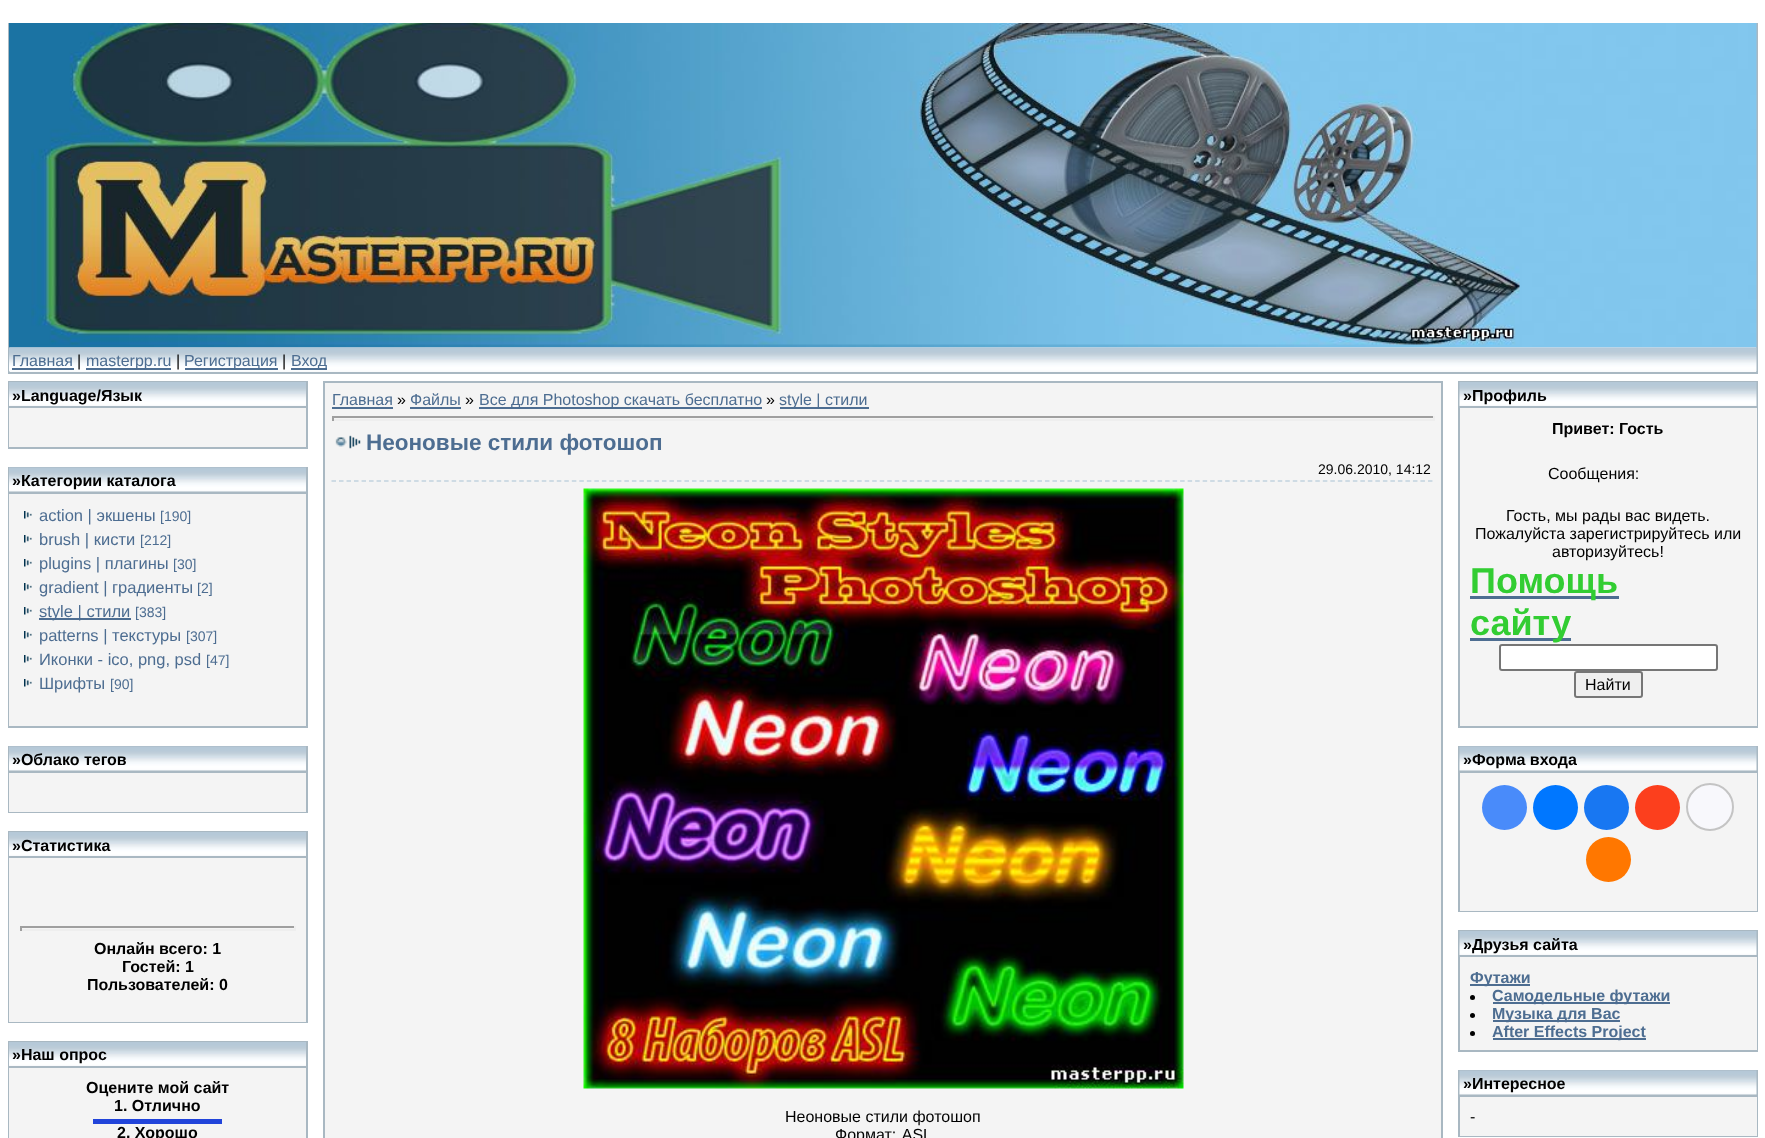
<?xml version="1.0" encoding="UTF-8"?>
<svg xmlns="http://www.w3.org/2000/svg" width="1765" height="1138">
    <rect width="100%" height="100%" fill="#FFFFFF"/>
    <rect x="9" y="-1" width="1748" height="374" fill="none" stroke="#A9B8C2" stroke-width="2"/>
    <rect x="8" y="0" width="1750" height="23" fill="#FFFFFF"/>
    <image x="9" y="23" width="1748" height="325" href="img_01.png"/>
    <image x="31" y="23" width="1489" height="322" href="img_02.png"/>
    <image x="9" y="347" width="1748" height="25" href="img_03.png"/>
    <text x="12" y="366" font-family="Liberation Sans" font-size="16" fill="#4D6D91">Главная</text>
    <rect x="12" y="368" width="62" height="2" fill="#4D6D91"/>
    <text x="77" y="366" font-family="Liberation Sans" font-size="16" fill="#000000">|</text>
    <rect x="86" y="368" width="85" height="2" fill="#4D6D91"/>
    <text x="86" y="366" font-family="Liberation Sans" font-size="16" fill="#4D6D91">masterpp.ru</text>
    <text x="176" y="366" font-family="Liberation Sans" font-size="16" fill="#000000">|</text>
    <rect x="185" y="368" width="93" height="2" fill="#4D6D91"/>
    <text x="184" y="366" font-family="Liberation Sans" font-size="16" fill="#4D6D91">Регистрация</text>
    <text x="282" y="366" font-family="Liberation Sans" font-size="16" fill="#000000">|</text>
    <rect x="291" y="368" width="36" height="2" fill="#4D6D91"/>
    <text x="291" y="366" font-family="Liberation Sans" font-size="16" fill="#4D6D91">Вход</text>
    <rect x="8" y="381" width="300" height="68" fill="#A9B8C2"/>
    <image x="9" y="382" width="297" height="24" href="img_04.png"/>
    <text x="12" y="401" font-family="Liberation Sans" font-size="16" font-weight="700" fill="#000000">»Language/Язык</text>
    <rect x="9" y="408" width="297" height="39" fill="#F4F4F4"/>
    <rect x="8" y="467" width="300" height="261" fill="#A9B8C2"/>
    <image x="9" y="467" width="297" height="25" href="img_05.png"/>
    <text x="12" y="486" font-family="Liberation Sans" font-size="16" font-weight="700" fill="#000000">»Категории каталога</text>
    <rect x="9" y="494" width="297" height="232" fill="#F4F4F4"/>
    <image x="24" y="511" width="8" height="8" href="img_06.png"/>
    <text x="39" y="521" font-family="Liberation Sans" font-size="16.5" fill="#4D6D91">action | экшены</text>
    <text x="160" y="521" font-family="Liberation Sans" font-size="14" fill="#4D6D91">[190]</text>
    <image x="24" y="535" width="8" height="8" href="img_06.png"/>
    <text x="39" y="545" font-family="Liberation Sans" font-size="16.5" fill="#4D6D91">brush | кисти</text>
    <text x="140" y="545" font-family="Liberation Sans" font-size="14" fill="#4D6D91">[212]</text>
    <image x="24" y="559" width="8" height="8" href="img_06.png"/>
    <text x="39" y="569" font-family="Liberation Sans" font-size="16.5" fill="#4D6D91">plugins | плагины</text>
    <text x="173" y="569" font-family="Liberation Sans" font-size="14" fill="#4D6D91">[30]</text>
    <image x="24" y="583" width="8" height="8" href="img_06.png"/>
    <text x="39" y="593" font-family="Liberation Sans" font-size="16.5" fill="#4D6D91">gradient | градиенты</text>
    <text x="197" y="593" font-family="Liberation Sans" font-size="14" fill="#4D6D91">[2]</text>
    <image x="24" y="607" width="8" height="8" href="img_06.png"/>
    <rect x="39" y="618" width="92" height="2" fill="#4D6D91"/>
    <text x="39" y="617" font-family="Liberation Sans" font-size="16.5" fill="#4D6D91">style | стили</text>
    <text x="135" y="617" font-family="Liberation Sans" font-size="14" fill="#4D6D91">[383]</text>
    <image x="24" y="631" width="8" height="8" href="img_06.png"/>
    <text x="39" y="641" font-family="Liberation Sans" font-size="16.5" fill="#4D6D91">patterns | текстуры</text>
    <text x="186" y="641" font-family="Liberation Sans" font-size="14" fill="#4D6D91">[307]</text>
    <image x="24" y="655" width="8" height="8" href="img_06.png"/>
    <text x="39" y="665" font-family="Liberation Sans" font-size="16.5" fill="#4D6D91">Иконки - ico, png, psd</text>
    <text x="206" y="665" font-family="Liberation Sans" font-size="14" fill="#4D6D91">[47]</text>
    <image x="24" y="679" width="8" height="8" href="img_06.png"/>
    <text x="39" y="689" font-family="Liberation Sans" font-size="16.5" fill="#4D6D91">Шрифты</text>
    <text x="110" y="689" font-family="Liberation Sans" font-size="14" fill="#4D6D91">[90]</text>
    <rect x="8" y="746" width="300" height="67" fill="#A9B8C2"/>
    <image x="9" y="746" width="297" height="25" href="img_07.png"/>
    <text x="12" y="765" font-family="Liberation Sans" font-size="16" font-weight="700" fill="#000000">»Облако тегов</text>
    <rect x="9" y="773" width="297" height="39" fill="#F4F4F4"/>
    <rect x="8" y="831" width="300" height="192" fill="#A9B8C2"/>
    <image x="9" y="832" width="297" height="24" href="img_08.png"/>
    <text x="12" y="851" font-family="Liberation Sans" font-size="16" font-weight="700" fill="#000000">»Статистика</text>
    <rect x="9" y="858" width="297" height="164" fill="#F4F4F4"/>
    <rect x="20" y="926" width="276" height="2" fill="#9F9F9F"/>
    <rect x="294" y="926" width="2" height="5" fill="#EEEEEE"/>
    <rect x="20" y="929" width="276" height="2" fill="#EEEEEE"/>
    <rect x="20" y="926" width="2" height="5" fill="#9F9F9F"/>
    <text x="94" y="954" font-family="Liberation Sans" font-size="16" font-weight="700" fill="#000000">Онлайн всего: 1</text>
    <text x="122" y="972" font-family="Liberation Sans" font-size="16" font-weight="700" fill="#000000">Гостей: 1</text>
    <text x="87" y="990" font-family="Liberation Sans" font-size="16" font-weight="700" fill="#000000">Пользователей: 0</text>
    <rect x="8" y="1041" width="300" height="97" fill="#A9B8C2"/>
    <image x="9" y="1042" width="297" height="24" href="img_09.png"/>
    <text x="12" y="1060" font-family="Liberation Sans" font-size="16" font-weight="700" fill="#000000">»Наш опрос</text>
    <rect x="9" y="1068" width="297" height="70" fill="#F4F4F4"/>
    <text x="86" y="1093" font-family="Liberation Sans" font-size="16" font-weight="700" fill="#000000">Оцените мой сайт</text>
    <text x="114" y="1111" font-family="Liberation Sans" font-size="16" font-weight="700" fill="#000000">1. Отлично</text>
    <rect x="93" y="1119" width="129" height="5" fill="#2144DA"/>
    <text x="117" y="1138" font-family="Liberation Sans" font-size="16" font-weight="700" fill="#000000">2. Хорошо</text>
    <rect x="324" y="382" width="1118" height="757" fill="#F4F4F4" stroke="#A9B8C2" stroke-width="2"/>
    <text x="332" y="405" font-family="Liberation Sans" font-size="16" fill="#4D6D91">Главная</text>
    <rect x="332" y="407" width="61" height="2" fill="#4D6D91"/>
    <text x="397" y="405" font-family="Liberation Sans" font-size="16" fill="#000000">»</text>
    <text x="410" y="405" font-family="Liberation Sans" font-size="16" fill="#4D6D91">Файлы</text>
    <rect x="410" y="407" width="51" height="2" fill="#4D6D91"/>
    <text x="465" y="405" font-family="Liberation Sans" font-size="16" fill="#000000">»</text>
    <rect x="479" y="407" width="283" height="2" fill="#4D6D91"/>
    <text x="479" y="405" font-family="Liberation Sans" font-size="16" fill="#4D6D91">Все для Photoshop скачать бесплатно</text>
    <text x="766" y="405" font-family="Liberation Sans" font-size="16" fill="#000000">»</text>
    <rect x="780" y="407" width="89" height="2" fill="#4D6D91"/>
    <text x="779" y="405" font-family="Liberation Sans" font-size="16" fill="#4D6D91">style | стили</text>
    <rect x="332" y="416" width="1102" height="2" fill="#9F9F9F"/>
    <rect x="1433" y="416" width="2" height="5" fill="#EEEEEE"/>
    <rect x="332" y="419" width="1102" height="2" fill="#EEEEEE"/>
    <rect x="332" y="416" width="2" height="5" fill="#9F9F9F"/>
    <image x="335" y="435" width="26" height="14" href="img_10.png"/>
    <text x="366" y="450" font-family="Liberation Sans" font-size="22.5" font-weight="700" fill="#4D6D91">Неоновые стили фотошоп</text>
    <text x="1318" y="474" font-family="Liberation Sans" font-size="14" fill="#000000">29.06.2010, 14:12</text>
    <path d="M 331.5 481 H 1434" fill="none" stroke="#C1D2DE" stroke-width="1.5" stroke-dasharray="4.5 3.01"/>
    <image x="583" y="488" width="601" height="601" href="img_11.png"/>
    <text x="785" y="1122" font-family="Liberation Sans" font-size="16" fill="#000000">Неоновые стили фотошоп</text>
    <text x="835" y="1140" word-spacing="1" font-family="Liberation Sans" font-size="16" fill="#000000">Формат: ASL</text>
    <rect x="1458" y="381" width="300" height="347" fill="#A9B8C2"/>
    <image x="1459" y="382" width="298" height="24" href="img_12.png"/>
    <text x="1463" y="401" font-family="Liberation Sans" font-size="16" font-weight="700" fill="#000000">»Профиль</text>
    <rect x="1460" y="408" width="297" height="318" fill="#F4F4F4"/>
    <text x="1552" y="434" font-family="Liberation Sans" font-size="16" font-weight="700" fill="#000000">Привет: Гость</text>
    <text x="1548" y="479" font-family="Liberation Sans" font-size="16" fill="#000000">Сообщения:</text>
    <text x="1506" y="521" font-family="Liberation Sans" font-size="16" fill="#000000">Гость, мы рады вас видеть.</text>
    <text x="1475" y="539" font-family="Liberation Sans" font-size="16" fill="#000000">Пожалуйста зарегистрируйтесь или</text>
    <text x="1552" y="557" font-family="Liberation Sans" font-size="16" fill="#000000">авторизуйтесь!</text>
    <rect x="1470" y="596" width="149" height="3" fill="#4D6D91"/>
    <text x="1470" y="593" font-family="Liberation Sans" font-size="36" font-weight="700" fill="#32CD32">Помощь</text>
    <rect x="1470" y="638" width="101" height="3" fill="#4D6D91"/>
    <text x="1470" y="635" font-family="Liberation Sans" font-size="36" font-weight="700" fill="#32CD32">сайту</text>
    <rect x="1500" y="645" width="217" height="25" rx="2" fill="#FFFFFF" stroke="#767676" stroke-width="2"/>
    <rect x="1575" y="672" width="67" height="25" rx="2" fill="#EFEFEF" stroke="#767676" stroke-width="2"/>
    <text x="1585" y="690" font-family="Liberation Sans" font-size="16" fill="#000000">Найти</text>
    <rect x="1458" y="746" width="300" height="166" fill="#A9B8C2"/>
    <image x="1459" y="746" width="298" height="25" href="img_13.png"/>
    <text x="1463" y="765" font-family="Liberation Sans" font-size="16" font-weight="700" fill="#000000">»Форма входа</text>
    <rect x="1460" y="773" width="297" height="138" fill="#F4F4F4"/>
    <circle cx="1504.5" cy="807.5" r="22.5" fill="#498BFA"/>
    <circle cx="1555.5" cy="807.5" r="22.5" fill="#0077FF"/>
    <circle cx="1606.5" cy="807.5" r="22.5" fill="#1877F2"/>
    <circle cx="1657.5" cy="807.5" r="22.5" fill="#FC3F1D"/>
    <circle cx="1710" cy="807" r="23" fill="#F8F8FC" stroke="#C4C4C4" stroke-width="2"/>
    <circle cx="1608.5" cy="859.5" r="22.5" fill="#FF7700"/>
    <rect x="1458" y="930" width="300" height="122" fill="#A9B8C2"/>
    <image x="1459" y="931" width="298" height="24" href="img_14.png"/>
    <text x="1463" y="950" font-family="Liberation Sans" font-size="16" font-weight="700" fill="#000000">»Друзья сайта</text>
    <rect x="1460" y="957" width="297" height="93" fill="#F4F4F4"/>
    <rect x="1470" y="984" width="60" height="2" fill="#4D6D91"/>
    <text x="1470" y="983" font-family="Liberation Sans" font-size="16" font-weight="700" fill="#4D6D91">Футажи</text>
    <circle cx="1472.5" cy="997.5" r="2.5" fill="#000000"/>
    <rect x="1493" y="1002" width="177" height="2" fill="#4D6D91"/>
    <text x="1492" y="1001" font-family="Liberation Sans" font-size="16" font-weight="700" fill="#4D6D91">Самодельные футажи</text>
    <circle cx="1472.5" cy="1015.5" r="2.5" fill="#000000"/>
    <rect x="1493" y="1020" width="127" height="2" fill="#4D6D91"/>
    <text x="1492" y="1019" font-family="Liberation Sans" font-size="16" font-weight="700" fill="#4D6D91">Музыка для Вас</text>
    <circle cx="1472.5" cy="1033.5" r="2.5" fill="#000000"/>
    <rect x="1493" y="1038" width="153" height="2" fill="#4D6D91"/>
    <text x="1492" y="1037" font-family="Liberation Sans" font-size="16" font-weight="700" fill="#4D6D91">After Effects Project</text>
    <rect x="1458" y="1070" width="300" height="67" fill="#A9B8C2"/>
    <image x="1459" y="1070" width="298" height="25" href="img_15.png"/>
    <text x="1463" y="1089" font-family="Liberation Sans" font-size="16" font-weight="700" fill="#000000">»Интересное</text>
    <rect x="1460" y="1097" width="297" height="39" fill="#F4F4F4"/>
    <text x="1470" y="1122" font-family="Liberation Sans" font-size="16" fill="#000000">-</text>
</svg>
